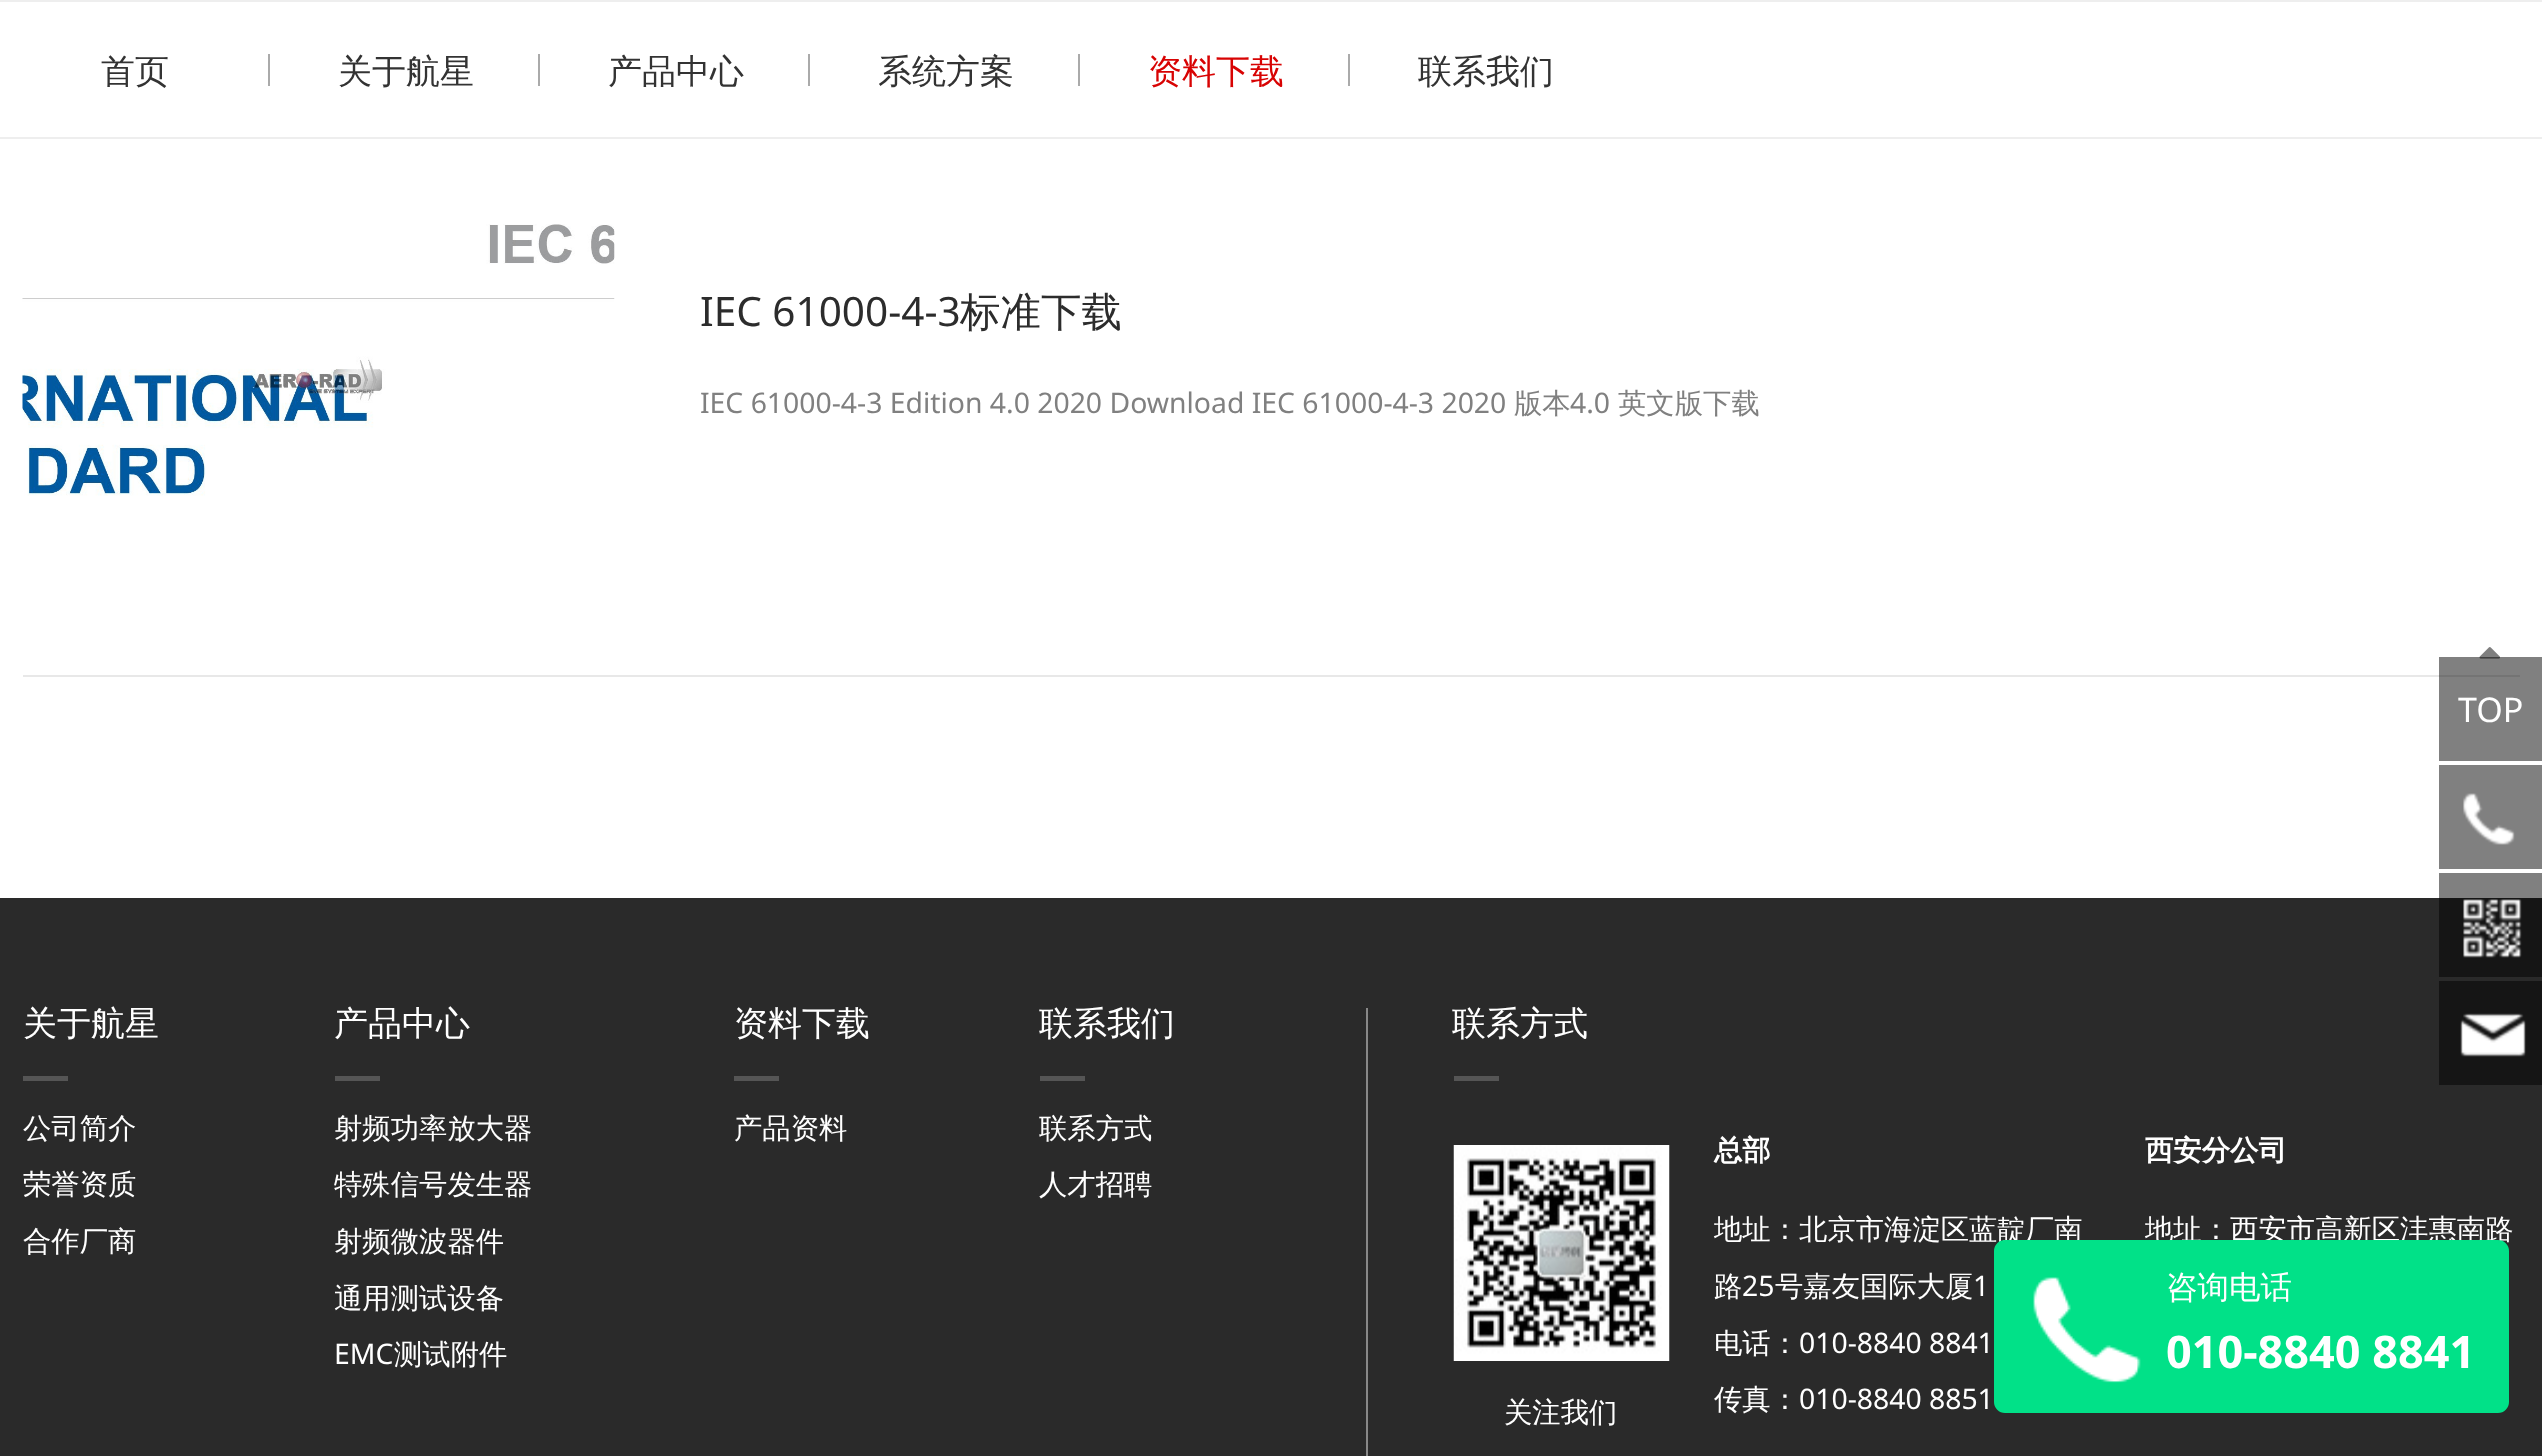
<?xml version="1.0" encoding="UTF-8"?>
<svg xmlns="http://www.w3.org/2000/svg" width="2542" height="1456">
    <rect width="100%" height="100%" fill="#FFFFFF"/>
    <rect x="2439" y="873" width="103" height="25" fill="#808080"/>
    <rect x="2439" y="657" width="103" height="104" fill="#808080"/>
    <rect x="0" y="137" width="2542" height="2" fill="#EEEEEE"/>
    <rect x="0" y="0" width="2542" height="2" fill="#EEEEEE"/>
    <text x="101" y="83" font-family="WenQuanYi Zen Hei" font-size="34" font-weight="500" fill="#333333">首页</text>
    <rect x="268" y="54" width="2" height="32" fill="#AAAAAA"/>
    <text x="338" y="83" font-family="WenQuanYi Zen Hei" font-size="34" font-weight="500" fill="#333333">关于航星</text>
    <rect x="538" y="54" width="2" height="32" fill="#AAAAAA"/>
    <text x="608" y="83" font-family="WenQuanYi Zen Hei" font-size="34" font-weight="500" fill="#333333">产品中心</text>
    <rect x="808" y="54" width="2" height="32" fill="#AAAAAA"/>
    <text x="878" y="83" font-family="WenQuanYi Zen Hei" font-size="34" font-weight="500" fill="#333333">系统方案</text>
    <rect x="1078" y="54" width="2" height="32" fill="#AAAAAA"/>
    <text x="1148" y="83" font-family="WenQuanYi Zen Hei" font-size="34" font-weight="500" fill="#D80303">资料下载</text>
    <rect x="1348" y="54" width="2" height="32" fill="#AAAAAA"/>
    <text x="1418" y="83" font-family="WenQuanYi Zen Hei" font-size="34" font-weight="500" fill="#333333">联系我们</text>
    <rect x="23" y="675" width="2416" height="2" fill="#E8E8E8"/>
    <rect x="2439" y="675" width="81" height="2" fill="#747474"/>
    <image x="22" y="224" width="593" height="272" href="img_01.png"/>
    <text x="700" y="326" font-family="Noto Sans" font-size="40.5" fill="#2C2C2C">IEC 61000-4-3</text>
    <text x="960" y="326" font-family="WenQuanYi Zen Hei" font-size="40.5" font-weight="500" fill="#2C2C2C">标准下载</text>
    <text x="700" y="413" font-family="Noto Sans" font-size="28.35" fill="#808080">IEC 61000-4-3 Edition 4.0 2020 Download IEC 61000-4-3 2020</text>
    <text x="1514" y="413" font-family="WenQuanYi Zen Hei" font-size="28.35" font-weight="500" fill="#808080">版本</text>
    <text x="1570" y="413" font-family="Noto Sans" font-size="28.35" fill="#808080">4.0</text>
    <text x="1618" y="413" font-family="WenQuanYi Zen Hei" font-size="28.35" font-weight="500" fill="#808080">英文版下载</text>
    <rect x="0" y="898" width="2542" height="558" fill="#2A2A2A"/>
    <rect x="2439" y="898" width="103" height="79" fill="#151515"/>
    <image x="2479" y="647" width="21" height="12" href="img_02.png"/>
    <text x="2458" y="722" font-family="Noto Sans" font-size="34" fill="#FFFFFF">TOP</text>
    <rect x="2439" y="765" width="103" height="104" fill="#808080"/>
    <image x="2463" y="793" width="52" height="52" href="img_03.png"/>
    <image x="2463" y="899" width="59" height="59" href="img_04.png"/>
    <rect x="2439" y="981" width="103" height="104" fill="#151515"/>
    <image x="2460" y="1013" width="66" height="44" href="img_05.png"/>
    <text x="23" y="1035" font-family="WenQuanYi Zen Hei" font-size="34" font-weight="500" fill="#FFFFFF">关于航星</text>
    <rect x="23" y="1076" width="45" height="5" fill="#555555"/>
    <text font-family="WenQuanYi Zen Hei" font-size="28.35" font-weight="500" fill="#FFFFFF">
        <tspan x="23" y="1138">公司简介</tspan>
        <tspan x="23" y="1194">荣誉资质</tspan>
    </text>
    <text x="23" y="1251" font-family="WenQuanYi Zen Hei" font-size="28.35" font-weight="500" fill="#FFFFFF">合作厂商</text>
    <text x="334" y="1035" font-family="WenQuanYi Zen Hei" font-size="34" font-weight="500" fill="#FFFFFF">产品中心</text>
    <rect x="335" y="1076" width="45" height="5" fill="#555555"/>
    <text font-family="WenQuanYi Zen Hei" font-size="28.35" font-weight="500" fill="#FFFFFF">
        <tspan x="334" y="1138">射频功率放大器</tspan>
        <tspan x="334" y="1194">特殊信号发生器</tspan>
    </text>
    <text x="334" y="1251" font-family="WenQuanYi Zen Hei" font-size="28.35" font-weight="500" fill="#FFFFFF">射频微波器件</text>
    <text x="334" y="1308" font-family="WenQuanYi Zen Hei" font-size="28.35" font-weight="500" fill="#FFFFFF">通用测试设备</text>
    <text x="334" y="1364" font-family="Noto Sans" font-size="28.35" fill="#FFFFFF">EMC</text>
    <text x="394" y="1364" font-family="WenQuanYi Zen Hei" font-size="28.35" font-weight="500" fill="#FFFFFF">测试附件</text>
    <text x="734" y="1035" font-family="WenQuanYi Zen Hei" font-size="34" font-weight="500" fill="#FFFFFF">资料下载</text>
    <rect x="734" y="1076" width="45" height="5" fill="#555555"/>
    <text x="734" y="1138" font-family="WenQuanYi Zen Hei" font-size="28.35" font-weight="500" fill="#FFFFFF">产品资料</text>
    <text x="1039" y="1035" font-family="WenQuanYi Zen Hei" font-size="34" font-weight="500" fill="#FFFFFF">联系我们</text>
    <rect x="1040" y="1076" width="45" height="5" fill="#555555"/>
    <text font-family="WenQuanYi Zen Hei" font-size="28.35" font-weight="500" fill="#FFFFFF">
        <tspan x="1039" y="1138">联系方式</tspan>
        <tspan x="1039" y="1194">人才招聘</tspan>
    </text>
    <rect x="1366" y="1008" width="2" height="448" fill="#888888"/>
    <text x="1452" y="1035" font-family="WenQuanYi Zen Hei" font-size="34" font-weight="500" fill="#FFFFFF">联系方式</text>
    <rect x="1454" y="1076" width="45" height="5" fill="#555555"/>
    <image x="1453" y="1145" width="217" height="216" href="img_06.png"/>
    <text x="1504" y="1422" font-family="WenQuanYi Zen Hei" font-size="28.35" font-weight="500" fill="#FFFFFF">关注我们</text>
    <text x="1714" y="1160" font-family="WenQuanYi Zen Hei" font-size="28.35" font-weight="700" fill="#FFFFFF">总部</text>
    <text x="1714" y="1239" font-family="WenQuanYi Zen Hei" font-size="28.35" font-weight="500" fill="#FFFFFF">地址：北京市海淀区蓝靛厂南</text>
    <text x="1714" y="1296" font-family="WenQuanYi Zen Hei" font-size="28.35" font-weight="500" fill="#FFFFFF">路</text>
    <text x="1742" y="1296" font-family="Noto Sans" font-size="28.35" fill="#FFFFFF">25</text>
    <text x="1775" y="1296" font-family="WenQuanYi Zen Hei" font-size="28.35" font-weight="500" fill="#FFFFFF">号嘉友国际大厦</text>
    <text x="1973" y="1296" font-family="Noto Sans" font-size="28.35" fill="#FFFFFF">1</text>
    <text x="1714" y="1353" font-family="WenQuanYi Zen Hei" font-size="28.35" font-weight="500" fill="#FFFFFF">电话：</text>
    <text x="1799" y="1353" font-family="Noto Sans" font-size="28.35" fill="#FFFFFF">010-8840 8841</text>
    <text x="1714" y="1409" font-family="WenQuanYi Zen Hei" font-size="28.35" font-weight="500" fill="#FFFFFF">传真：</text>
    <text x="1799" y="1409" font-family="Noto Sans" font-size="28.35" fill="#FFFFFF">010-8840 8851</text>
    <text x="2145" y="1160" font-family="WenQuanYi Zen Hei" font-size="28.35" font-weight="700" fill="#FFFFFF">西安分公司</text>
    <text x="2145" y="1239" font-family="WenQuanYi Zen Hei" font-size="28.35" font-weight="500" fill="#FFFFFF">地址：西安市高新区沣惠南路</text>
    <rect x="1995" y="1241" width="513" height="171" rx="10" fill="#01E188" stroke="#01E188" stroke-width="2"/>
    <image x="2033" y="1277" width="108" height="106" href="img_07.png"/>
    <text x="2166" y="1298" font-family="WenQuanYi Zen Hei" font-size="31.5" font-weight="500" fill="#FFFFFF">咨询电话</text>
    <text x="2166" y="1368" font-family="Noto Sans" font-size="45" font-weight="700" fill="#FFFFFF">010-8840 8841</text>
</svg>
